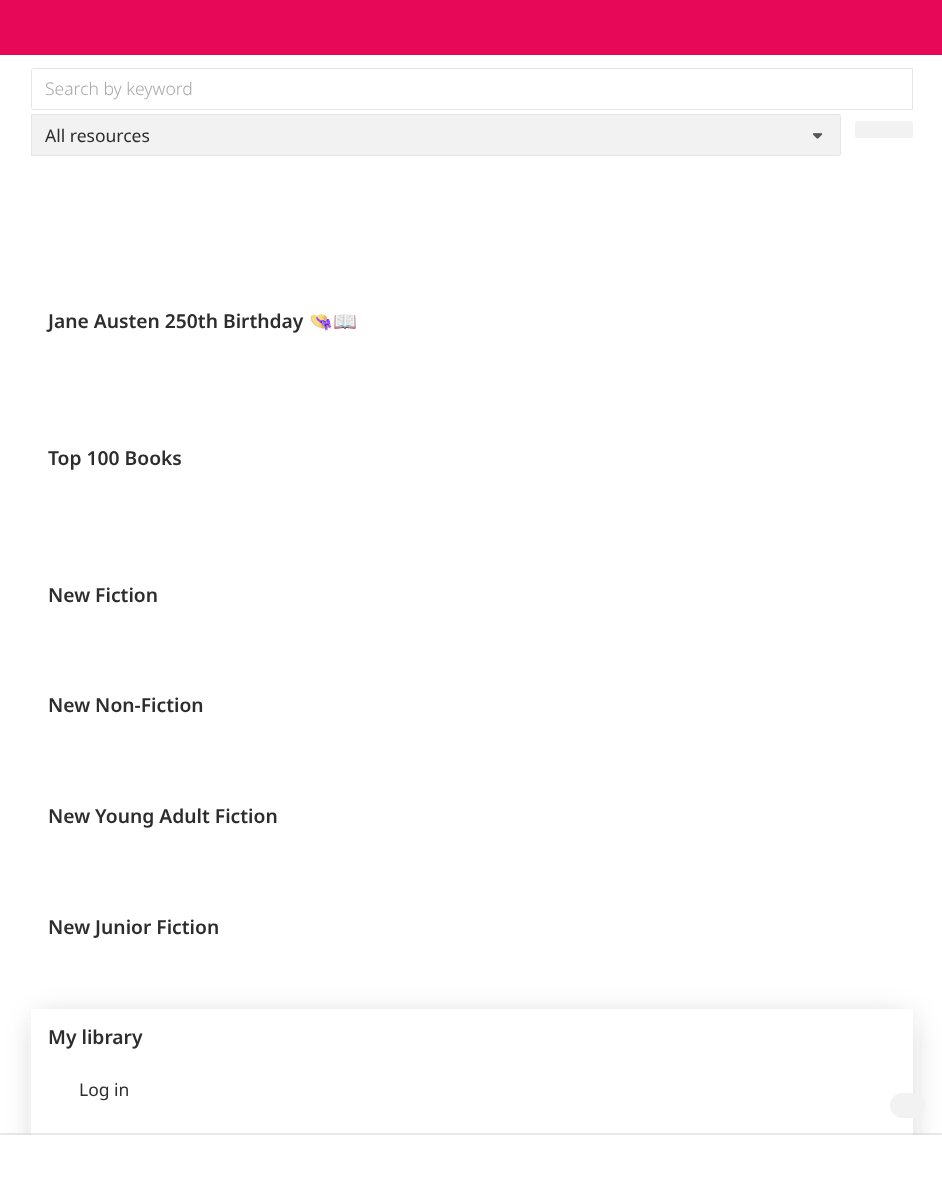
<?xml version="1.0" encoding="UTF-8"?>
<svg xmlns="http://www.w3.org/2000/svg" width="942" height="1197">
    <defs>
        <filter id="blur1" x="-50%" y="-200%" width="200%" height="500%"><feGaussianBlur stdDeviation="15"/></filter>
    </defs>
    <rect width="100%" height="100%" fill="#FFFFFF"/>
    <rect x="0" y="0" width="942" height="55" fill="#E70957"/>
    <path d="M 33.5 68.5 H 912.5 V 109.5 H 33.5 C 32.5 109.5 31.5 108.5 31.5 107.5 V 70.5 C 31.5 69.5 32.5 68.5 33.5 68.5 Z" fill="none" stroke="#E4E4E4"/>
    <text x="45" y="95" font-family="Noto Sans" font-size="17.5" font-weight="300" fill="#A9A9A9">Search by keyword</text>
    <path d="M 31 114 H 838.5 C 840 114 841 115 841 116.5 V 153.5 C 841 155 840 156 838.5 156 H 31 Z" fill="#F2F2F2"/>
    <image x="812" y="133" width="11" height="6" href="img_01.png"/>
    <path d="M 31.5 114.5 H 838.5 C 839.5 114.5 840.5 115.5 840.5 116.5 V 153.5 C 840.5 154.5 839.5 155.5 838.5 155.5 H 31.5 Z" fill="none" stroke="#E4E4E4"/>
    <text x="45" y="142" font-family="Noto Sans" font-size="17.5" fill="#2D2D2D">All resources</text>
    <rect x="855" y="121" width="58" height="17" rx="2.5" fill="#F2F2F2"/>
    <text x="48" y="328" font-family="Noto Sans" font-size="19.25" font-weight="600" fill="#2D2D2D">Jane Austen 250th Birthday</text>
    <text x="309" y="328" font-family="Noto Color Emoji" font-size="19.25" fill="#2D2D2D">👒📖</text>
    <text x="48" y="465" font-family="Noto Sans" font-size="19.25" font-weight="600" fill="#2D2D2D">Top 100 Books</text>
    <text x="48" y="602" font-family="Noto Sans" font-size="19.25" font-weight="600" fill="#2D2D2D">New Fiction</text>
    <text x="48" y="712" font-family="Noto Sans" font-size="19.25" font-weight="600" fill="#2D2D2D">New Non-Fiction</text>
    <text x="48" y="823" font-family="Noto Sans" font-size="19.25" font-weight="600" fill="#2D2D2D">New Young Adult Fiction</text>
    <text x="48" y="934" font-family="Noto Sans" font-size="19.25" font-weight="600" fill="#2D2D2D">New Junior Fiction</text>
    <rect x="38" y="1020" width="871" height="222" fill="#2D2D2D" fill-opacity="0.25" filter="url(#blur1)"/>
    <rect x="31" y="1009" width="882" height="126" fill="#FFFFFF"/>
    <text x="48" y="1044" font-family="Noto Sans" font-size="19.25" font-weight="600" fill="#2D2D2D">My library</text>
    <text x="79" y="1096" font-family="Noto Sans" font-size="17.5" fill="#2D2D2D">Log in</text>
    <rect x="890" y="1093" width="35" height="25" rx="12.5" fill="#F2F2F2"/>
    <rect x="-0.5" y="1134.5" width="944" height="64" fill="none" stroke="#A9A9A9" stroke-opacity="0.25" stroke-width="3"/>
    <rect x="0" y="1135" width="942" height="62" fill="#FFFFFF"/>
</svg>
